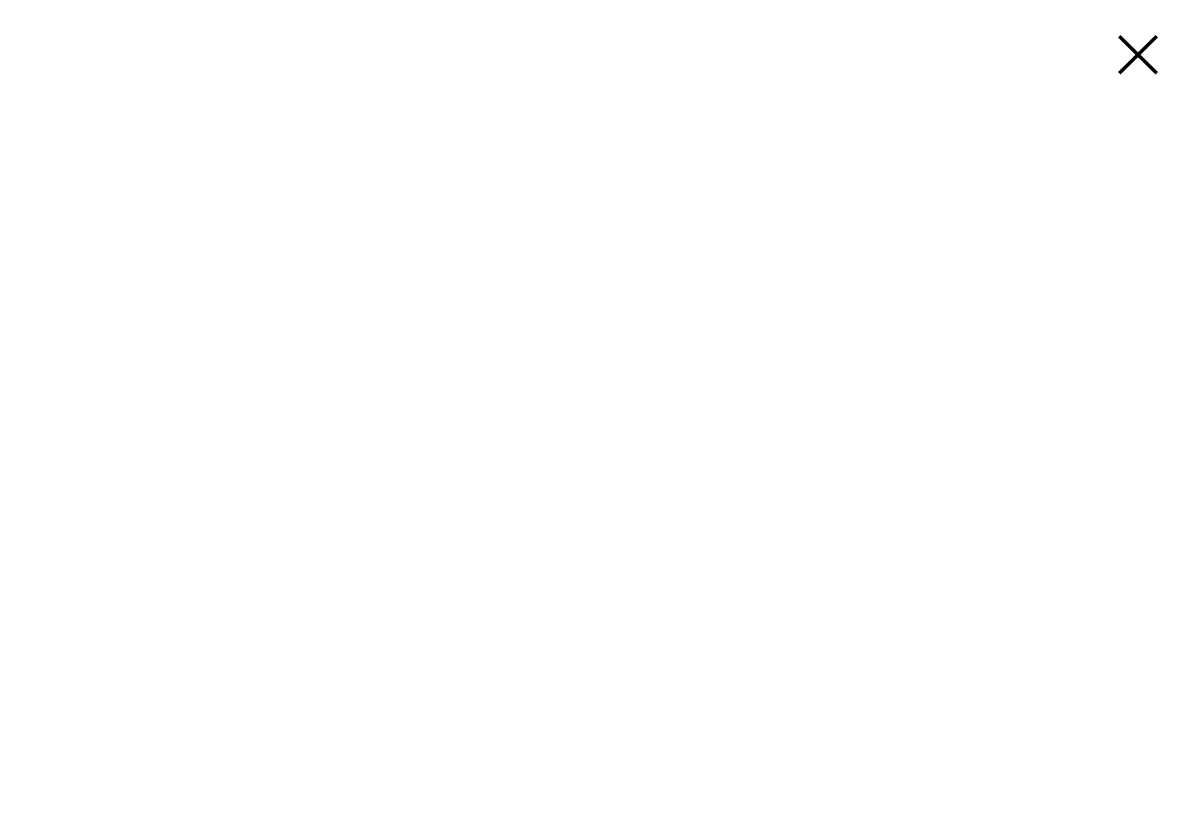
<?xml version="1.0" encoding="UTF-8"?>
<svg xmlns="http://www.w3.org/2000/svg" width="1193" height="813">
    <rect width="100%" height="100%" fill="#FFFFFF"/>
    <path d="M 1118 37.5 L 1120.5 35 L 1158 72 L 1155.5 74.5 Z" fill="#000000" fill-rule="evenodd"/>
    <path d="M 1155.5 35 L 1158 37.5 L 1120.5 74.5 L 1118 72 Z" fill="#000000" fill-rule="evenodd"/>
</svg>
